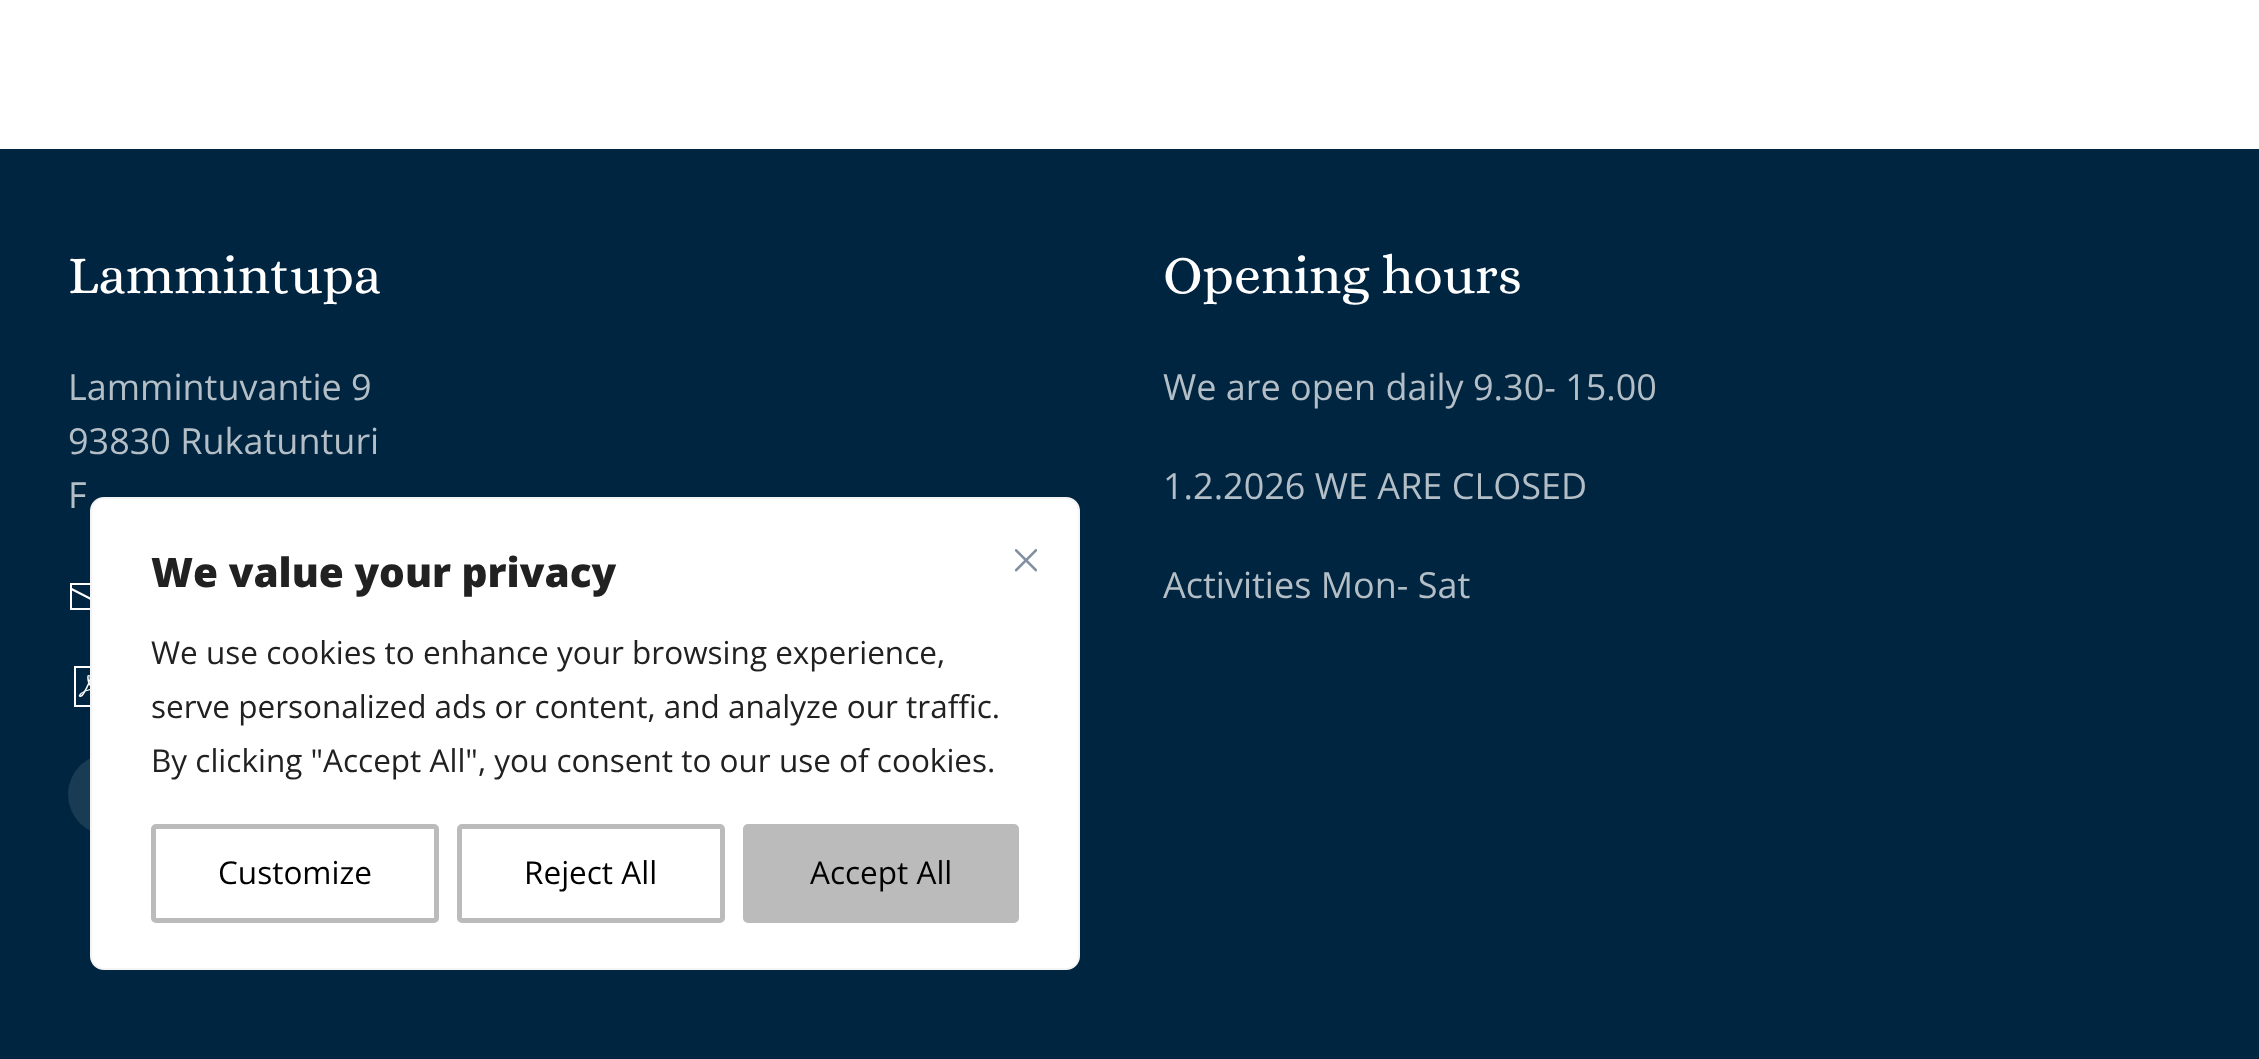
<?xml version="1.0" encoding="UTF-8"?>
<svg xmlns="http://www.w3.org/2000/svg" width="2259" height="1059">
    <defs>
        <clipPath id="clip1"><rect x="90" y="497" width="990" height="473" rx="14"/></clipPath>
        <filter id="blur1" x="-50%" y="-200%" width="200%" height="500%"><feGaussianBlur stdDeviation="11"/></filter>
    </defs>
    <rect width="100%" height="100%" fill="#FFFFFF"/>
    <rect x="0" y="149" width="2259" height="910" fill="#002541"/>
    <text x="68" y="293" font-family="Alice" font-size="54" fill="#FFFFFF">Lammintupa</text>
    <text font-family="Open Sans" font-size="36" fill="#B3BEC6">
        <tspan x="68" y="400">Lammintuvantie 9</tspan>
        <tspan x="68" y="454">93830 Rukatunturi</tspan>
        <tspan x="68" y="508">F</tspan>
    </text>
    <path d="M 70.5 588.5 L 90 598.5 L 109.5 588.5" fill="none" stroke="#FFFFFF" stroke-width="2.2"/>
    <path d="M 70 583 V 610 H 110 V 583 Z M 108 608 H 72 V 585 H 108 Z" fill="#FFFFFF"/>
    <image x="74" y="666" width="16" height="41" href="img_01.png"/>
    <circle cx="108.5" cy="794.5" r="40.5" fill="#1A3B54"/>
    <text x="1163" y="293" font-family="Alice" font-size="54" fill="#FFFFFF">Opening hours</text>
    <text x="1163" y="400" font-family="Open Sans" font-size="36" fill="#B3BEC6">We are open daily 9.30- 15.00</text>
    <text x="1163" y="499" font-family="Open Sans" font-size="36" fill="#B3BEC6">1.2.2026 WE ARE CLOSED</text>
    <text x="1163" y="598" font-family="Open Sans" font-size="36" fill="#B3BEC6">Activities Mon- Sat</text>
    <g clip-path="url(#clip1)">
        <rect x="90" y="495" width="990" height="473" rx="14" fill="#ACABAB" fill-opacity="0.3" filter="url(#blur1)"/>
    </g>
    <rect x="91" y="498" width="988" height="471" rx="13" fill="#FFFFFF" stroke="#F4F4F4" stroke-width="2"/>
    <text x="151" y="587" font-family="Open Sans" font-size="40.5" font-weight="800" fill="#212121">We value your privacy</text>
    <text font-family="Open Sans" font-size="31.5" fill="#212121">
        <tspan x="151" y="664">We use cookies to enhance your browsing experience,</tspan>
        <tspan x="151" y="718">serve personalized ads or content, and analyze our traffic.</tspan>
        <tspan x="151" y="772">By clicking "Accept All", you consent to our use of cookies.</tspan>
    </text>
    <rect x="153.5" y="826.5" width="283" height="94" rx="2.5" fill="none" stroke="#BBBBBB" stroke-width="5"/>
    <text x="218" y="884" font-family="Open Sans" font-size="31.5" fill="#000000">Customize</text>
    <rect x="459.5" y="826.5" width="263" height="94" rx="2.5" fill="none" stroke="#BBBBBB" stroke-width="5"/>
    <text x="524" y="884" font-family="Open Sans" font-size="31.5" fill="#000000">Reject All</text>
    <rect x="745.5" y="826.5" width="271" height="94" rx="2.5" fill="#BBBBBB" stroke="#BBBBBB" stroke-width="5"/>
    <text x="810" y="884" font-family="Open Sans" font-size="31.5" fill="#000000">Accept All</text>
    <image x="1015" y="549" width="22" height="23" href="img_02.png"/>
</svg>
